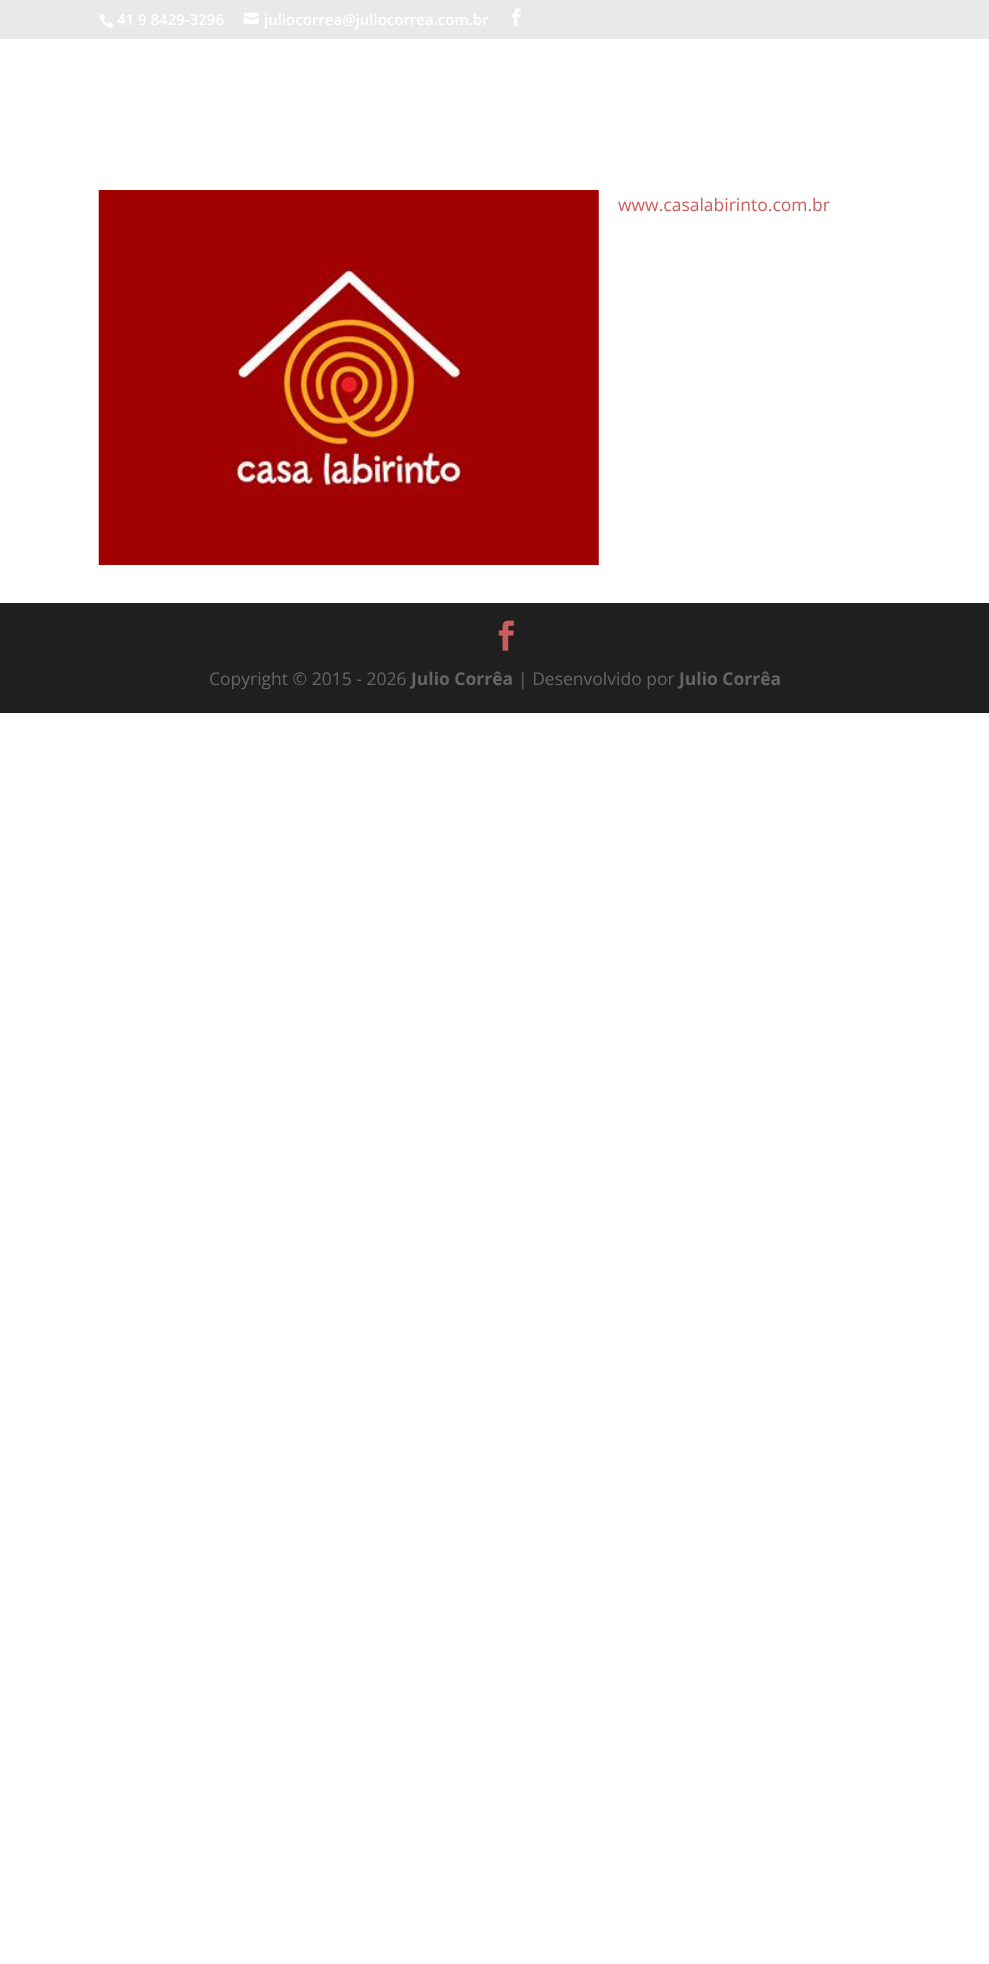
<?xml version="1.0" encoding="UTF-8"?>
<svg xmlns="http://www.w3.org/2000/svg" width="989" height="1964">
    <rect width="100%" height="100%" fill="#FFFFFF"/>
    <rect x="0" y="0" width="989" height="39" fill="#E9E9E9"/>
    <image x="99" y="14" width="14" height="14" href="img_01.png"/>
    <text x="117" y="25" font-family="Open Sans" font-size="15" font-weight="600" fill="#FFFFFF">41 9 8429-3296</text>
    <image x="243" y="12" width="16" height="12" href="img_02.png"/>
    <text x="264" y="25" font-family="Open Sans" font-size="15" font-weight="600" fill="#FFFFFF">juliocorrea@juliocorrea.com.br</text>
    <image x="512" y="8" width="9" height="18" href="img_03.png"/>
    <image x="98" y="190" width="501" height="375" href="img_04.png"/>
    <text x="618" y="211" font-family="Open Sans" font-size="17.5" fill="#CD5C5C">www.casalabirinto.com.br</text>
    <rect x="0" y="603" width="989" height="110" fill="#1F1F1F"/>
    <image x="498" y="620" width="16" height="31" href="img_05.png"/>
    <text x="209" y="685" font-family="Open Sans" font-size="17.5" fill="#666666">Copyright © 2015 - 2026</text>
    <text x="411" y="685" font-family="Open Sans" font-size="17.5" font-weight="700" fill="#666666">Julio Corrêa</text>
    <text x="518" y="685" font-family="Open Sans" font-size="17.5" fill="#666666">| Desenvolvido por</text>
    <text x="679" y="685" font-family="Open Sans" font-size="17.5" font-weight="700" fill="#666666">Julio Corrêa</text>
</svg>
